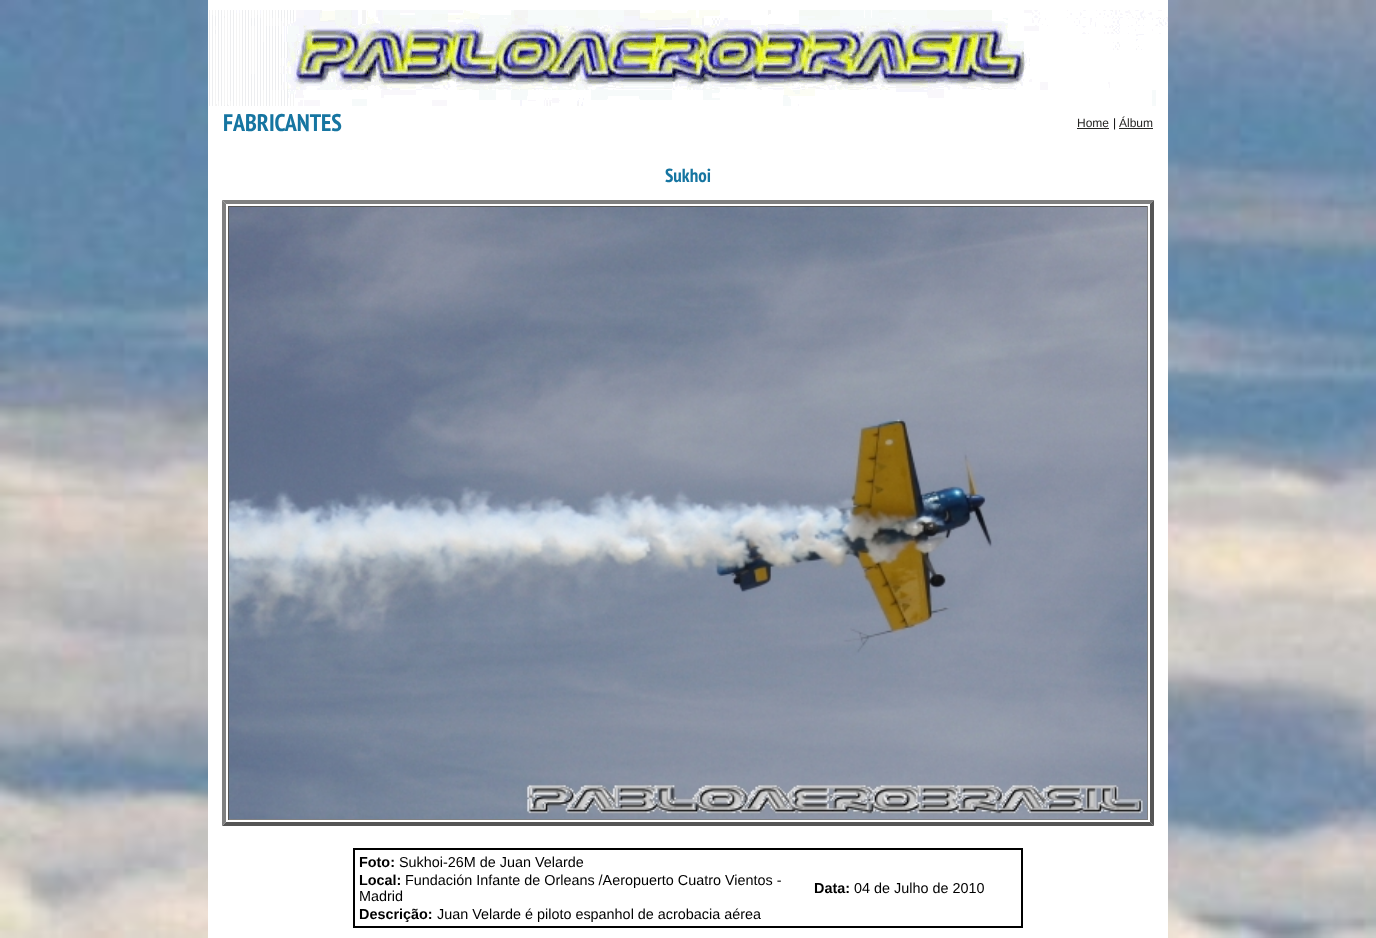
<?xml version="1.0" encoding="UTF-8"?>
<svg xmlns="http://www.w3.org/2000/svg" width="1376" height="938">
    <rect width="100%" height="100%" fill="#FFFFFF"/>
    <image x="0" y="0" width="1376" height="938" href="img_01.png"/>
    <rect x="208" y="0" width="960" height="938" fill="#FFFFFF"/>
    <image x="209" y="10" width="959" height="96" href="img_02.png"/>
    <text x="223" y="131" font-family="PT Sans Narrow" font-size="24" font-weight="700" fill="#1675A1">FABRICANTES</text>
    <text x="1077" y="127" font-family="Liberation Sans" font-size="12" fill="#272624">Home</text>
    <rect x="1077" y="128" width="32" height="1" fill="#272624"/>
    <text x="1113" y="127" font-family="Liberation Sans" font-size="12" fill="#000000">|</text>
    <text x="1119" y="127" font-family="Liberation Sans" font-size="12" fill="#272624">Álbum</text>
    <rect x="1119" y="128" width="34" height="1" fill="#272624"/>
    <text x="665" y="182" font-family="PT Sans Narrow" font-size="19" font-weight="700" fill="#1675A1">Sukhoi</text>
    <path d="M 222 200 H 1154 L 1150 204 H 226 Z" fill="#808080"/>
    <path d="M 1154 200 V 826 L 1150 822 V 204 Z" fill="#555555"/>
    <path d="M 1154 826 H 222 L 226 822 H 1150 Z" fill="#555555"/>
    <path d="M 222 826 V 200 L 226 204 V 822 Z" fill="#808080"/>
    <rect x="228" y="206" width="920" height="1" fill="#555555"/>
    <rect x="1147" y="206" width="1" height="614" fill="#808080"/>
    <rect x="228" y="819" width="920" height="1" fill="#808080"/>
    <rect x="228" y="206" width="1" height="614" fill="#555555"/>
    <image x="229" y="207" width="918" height="612" href="img_03.png"/>
    <rect x="354" y="849" width="668" height="78" fill="none" stroke="#000000" stroke-width="2"/>
    <text x="359" y="867" font-family="Liberation Sans" font-size="14.4" font-weight="700" fill="#000000">Foto:</text>
    <text x="399" y="867" font-family="Liberation Sans" font-size="14.4" fill="#000000">Sukhoi-26M de Juan Velarde</text>
    <text x="359" y="885" font-family="Liberation Sans" font-size="14.4" font-weight="700" fill="#000000">Local:</text>
    <text x="405" y="885" font-family="Liberation Sans" font-size="14.4" fill="#000000">Fundación Infante de Orleans /Aeropuerto Cuatro Vientos -</text>
    <text x="359" y="901" font-family="Liberation Sans" font-size="14.4" fill="#000000">Madrid</text>
    <text x="814" y="893" font-family="Liberation Sans" font-size="14.4" font-weight="700" fill="#000000">Data:</text>
    <text x="854" y="893" font-family="Liberation Sans" font-size="14.4" fill="#000000">04 de Julho de 2010</text>
    <text x="359" y="919" font-family="Liberation Sans" font-size="14.4" font-weight="700" fill="#000000">Descrição:</text>
    <text x="437" y="919" font-family="Liberation Sans" font-size="14.4" fill="#000000">Juan Velarde é piloto espanhol de acrobacia aérea</text>
</svg>
